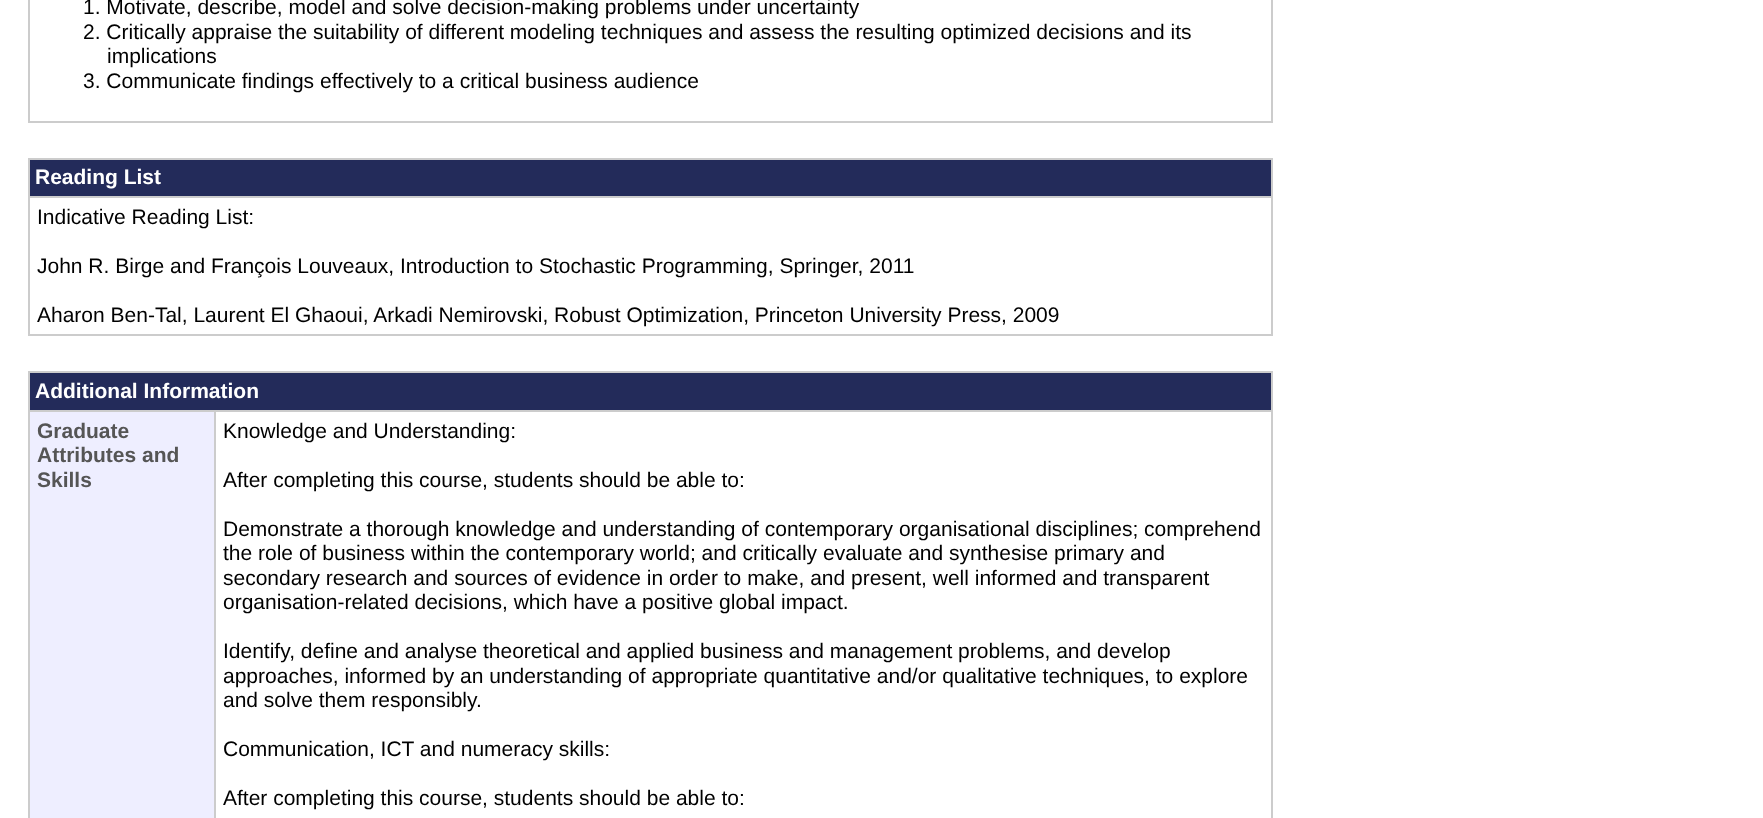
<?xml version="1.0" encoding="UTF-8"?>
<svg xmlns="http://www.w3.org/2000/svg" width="1763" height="818">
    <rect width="100%" height="100%" fill="#FFFFFF"/>
    <rect x="1271" y="0" width="2" height="123" fill="#CCCCCC"/>
    <rect x="28" y="121" width="1244" height="2" fill="#CCCCCC"/>
    <rect x="28" y="0" width="2" height="123" fill="#CCCCCC"/>
    <text font-family="Liberation Sans" font-size="21" fill="#000000">
        <tspan x="83" y="14">1. Motivate, describe, model and solve decision-making problems under uncertainty</tspan>
        <tspan x="83" y="39">2. Critically appraise the suitability of different modeling techniques and assess the resulting optimized decisions and its</tspan>
    </text>
    <text x="107" y="63" font-family="Liberation Sans" font-size="21" fill="#000000">implications</text>
    <text x="83" y="88" font-family="Liberation Sans" font-size="21" fill="#000000">3. Communicate findings effectively to a critical business audience</text>
    <rect x="28" y="158" width="1244" height="2" fill="#CCCCCC"/>
    <rect x="1271" y="158" width="2" height="178" fill="#CCCCCC"/>
    <rect x="28" y="334" width="1244" height="2" fill="#CCCCCC"/>
    <rect x="28" y="158" width="2" height="178" fill="#CCCCCC"/>
    <rect x="30" y="160" width="1241" height="36" fill="#232B5A"/>
    <text x="35" y="184" font-family="Liberation Sans" font-size="21" font-weight="700" fill="#FFFFFF">Reading List</text>
    <rect x="28" y="196" width="1244" height="2" fill="#CCCCCC"/>
    <text x="37" y="224" font-family="Liberation Sans" font-size="21" fill="#000000">Indicative Reading List:</text>
    <text x="37" y="273" font-family="Liberation Sans" font-size="21" fill="#000000">John R. Birge and François Louveaux, Introduction to Stochastic Programming, Springer, 2011</text>
    <text x="37" y="322" font-family="Liberation Sans" font-size="21" fill="#000000">Aharon Ben-Tal, Laurent El Ghaoui, Arkadi Nemirovski, Robust Optimization, Princeton University Press, 2009</text>
    <rect x="28" y="371" width="1244" height="2" fill="#CCCCCC"/>
    <rect x="1271" y="371" width="2" height="447" fill="#CCCCCC"/>
    <rect x="28" y="371" width="2" height="447" fill="#CCCCCC"/>
    <rect x="30" y="373" width="1241" height="37" fill="#232B5A"/>
    <text x="35" y="398" font-family="Liberation Sans" font-size="21" font-weight="700" fill="#FFFFFF">Additional Information</text>
    <rect x="30" y="412" width="184" height="406" fill="#EEEEFF"/>
    <rect x="214" y="410" width="1058" height="2" fill="#CCCCCC"/>
    <rect x="214" y="410" width="2" height="408" fill="#CCCCCC"/>
    <rect x="28" y="410" width="187" height="2" fill="#CCCCCC"/>
    <text font-family="Liberation Sans" font-size="21" font-weight="700" fill="#555555">
        <tspan x="37" y="438">Graduate</tspan>
        <tspan x="37" y="462">Attributes and</tspan>
        <tspan x="37" y="487">Skills</tspan>
    </text>
    <text x="223" y="438" font-family="Liberation Sans" font-size="21" fill="#000000">Knowledge and Understanding:</text>
    <text x="223" y="487" font-family="Liberation Sans" font-size="21" fill="#000000">After completing this course, students should be able to:</text>
    <text font-family="Liberation Sans" font-size="21" fill="#000000">
        <tspan x="223" y="536">Demonstrate a thorough knowledge and understanding of contemporary organisational disciplines; comprehend</tspan>
        <tspan x="223" y="560">the role of business within the contemporary world; and critically evaluate and synthesise primary and</tspan>
        <tspan x="223" y="585">secondary research and sources of evidence in order to make, and present, well informed and transparent</tspan>
        <tspan x="223" y="609">organisation-related decisions, which have a positive global impact.</tspan>
    </text>
    <text font-family="Liberation Sans" font-size="21" fill="#000000">
        <tspan x="223" y="658">Identify, define and analyse theoretical and applied business and management problems, and develop</tspan>
        <tspan x="223" y="683">approaches, informed by an understanding of appropriate quantitative and/or qualitative techniques, to explore</tspan>
        <tspan x="223" y="707">and solve them responsibly.</tspan>
    </text>
    <text x="223" y="756" font-family="Liberation Sans" font-size="21" fill="#000000">Communication, ICT and numeracy skills:</text>
    <text x="223" y="805" font-family="Liberation Sans" font-size="21" fill="#000000">After completing this course, students should be able to:</text>
</svg>
